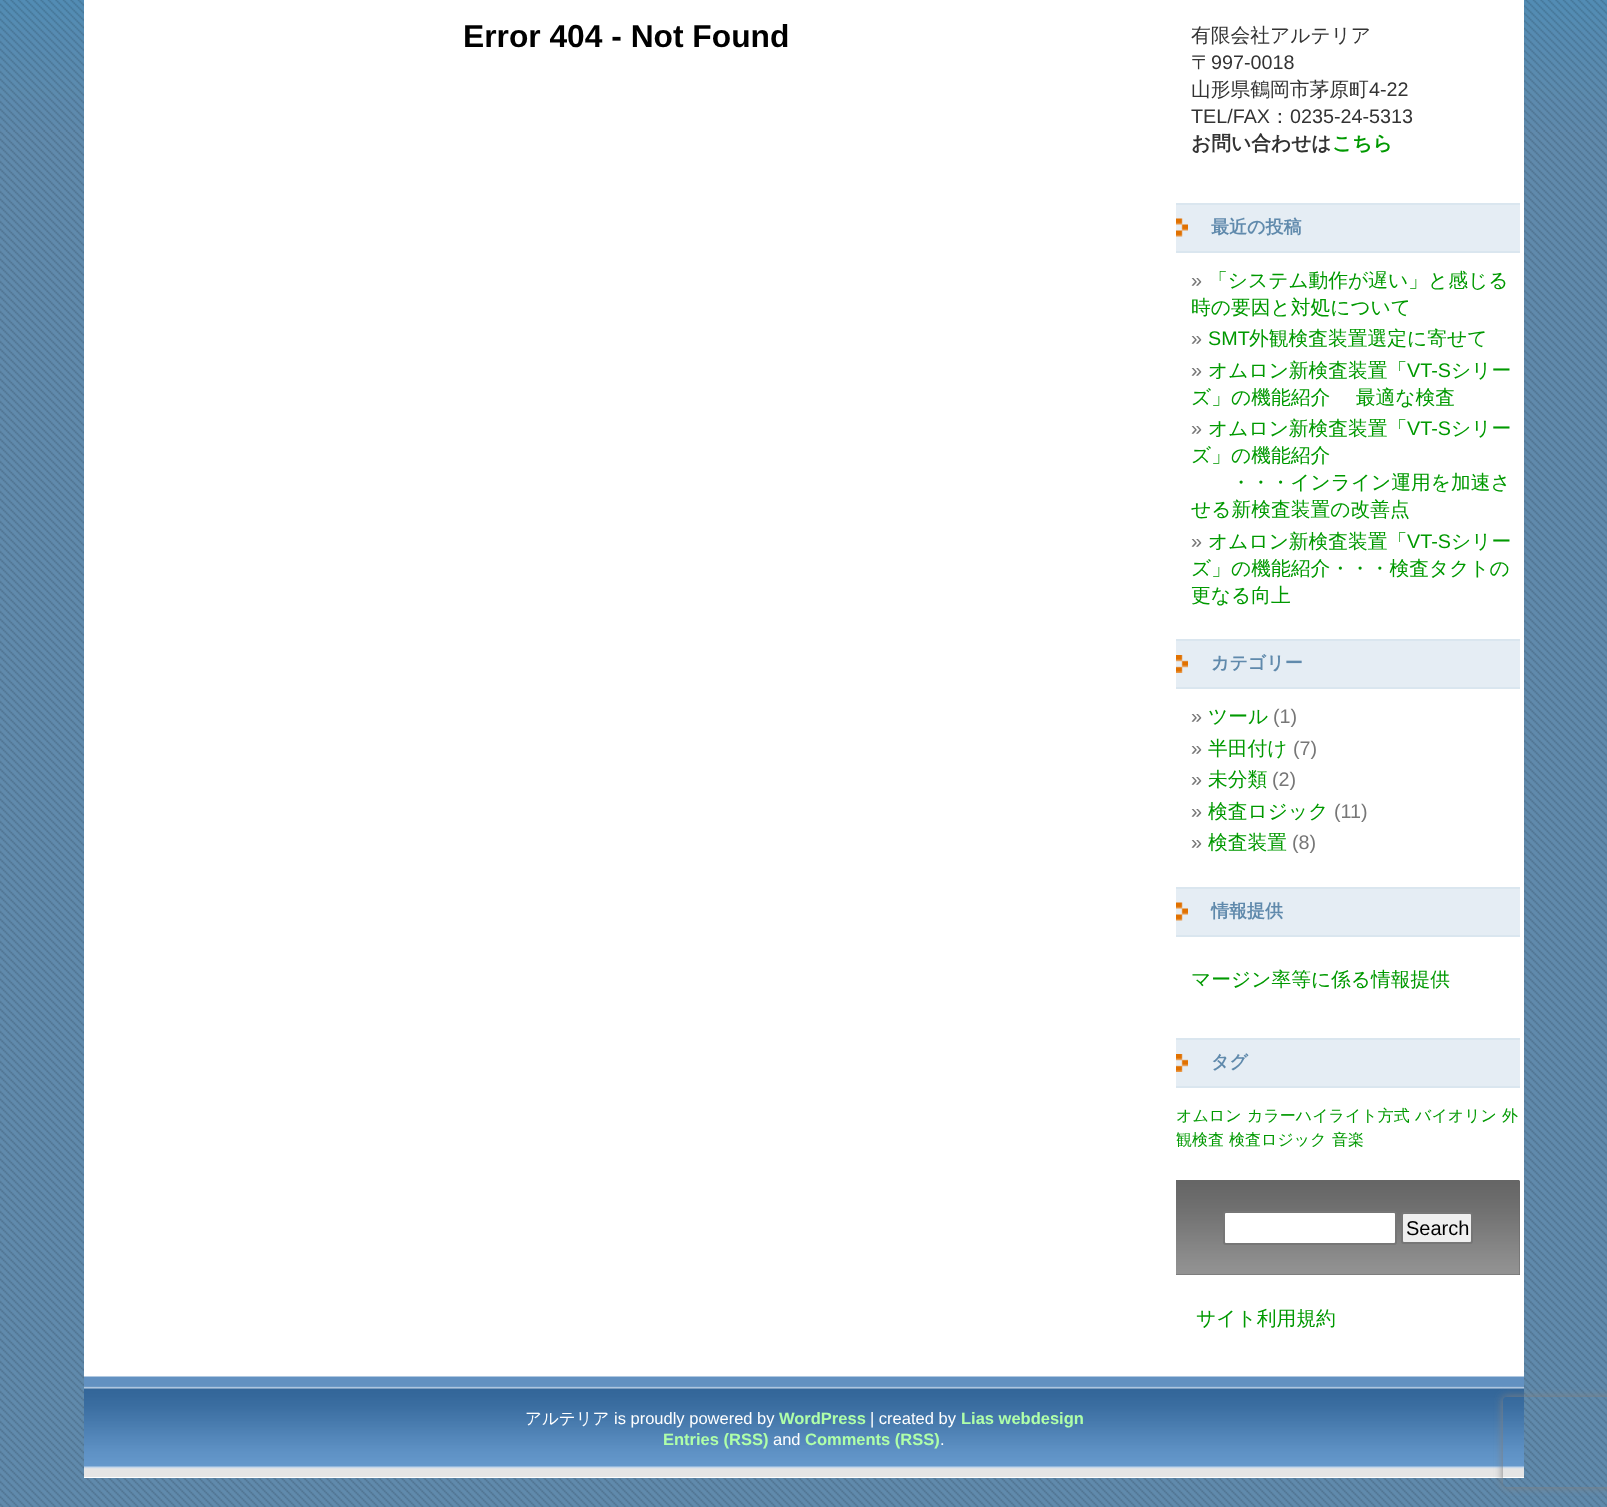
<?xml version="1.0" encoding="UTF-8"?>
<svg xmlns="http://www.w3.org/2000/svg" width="1607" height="1507">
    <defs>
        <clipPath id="clip1"><path d="M 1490 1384 H 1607 V 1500 H 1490 Z M 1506 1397 H 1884 C 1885.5 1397 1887 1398.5 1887 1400 V 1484 C 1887 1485.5 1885.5 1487 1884 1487 H 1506 C 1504.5 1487 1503 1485.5 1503 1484 V 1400 C 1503 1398.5 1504.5 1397 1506 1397 Z" clip-rule="evenodd"/></clipPath>
        <filter id="blur1" x="-50%" y="-200%" width="200%" height="500%"><feGaussianBlur stdDeviation="4"/></filter>
    </defs>
    <rect width="100%" height="100%" fill="#FFFFFF"/>
    <image x="0" y="131" width="1607" height="1376" href="img_01.png"/>
    <image x="0" y="0" width="1607" height="132" href="img_02.png"/>
    <rect x="84" y="0" width="1440" height="1377" fill="#FFFFFF"/>
    <text x="463" y="47" font-family="Liberation Sans" font-size="31.75" font-weight="700" fill="#000000">Error 404 - Not Found</text>
    <text font-family="WenQuanYi Zen Hei" font-size="19.75" font-weight="500" fill="#333333">
        <tspan x="1191" y="42">有限会社アルテリア</tspan>
        <tspan x="1191" y="69">〒</tspan>
    </text>
    <text x="1211" y="69" font-family="Liberation Sans" font-size="19.75" fill="#333333">997-0018</text>
    <text x="1191" y="96" font-family="WenQuanYi Zen Hei" font-size="19.75" font-weight="500" fill="#333333">山形県鶴岡市茅原町</text>
    <text x="1369" y="96" font-family="Liberation Sans" font-size="19.75" fill="#333333">4-22</text>
    <text x="1191" y="123" font-family="Liberation Sans" font-size="19.75" fill="#333333">TEL/FAX</text>
    <text x="1270" y="123" font-family="WenQuanYi Zen Hei" font-size="19.75" font-weight="500" fill="#333333">：</text>
    <text x="1290" y="123" font-family="Liberation Sans" font-size="19.75" fill="#333333">0235-24-5313</text>
    <text x="1191" y="150" font-family="WenQuanYi Zen Hei" font-size="19.75" font-weight="700" fill="#333333">お問い合わせは</text>
    <text x="1332" y="150" font-family="WenQuanYi Zen Hei" font-size="19.75" font-weight="700" fill="#009900">こちら</text>
    <rect x="1176" y="205" width="344" height="46" fill="#E5EDF4"/>
    <image x="1176" y="218" width="12" height="19" href="img_03.png"/>
    <rect x="1176" y="203" width="344" height="2" fill="#DAE6EF"/>
    <rect x="1176" y="251" width="344" height="2" fill="#DAE6EF"/>
    <text x="1211" y="233" font-family="WenQuanYi Zen Hei" font-size="18" font-weight="700" fill="#608AAC">最近の投稿</text>
    <text x="1191" y="287" font-family="Liberation Sans" font-size="19.75" fill="#777777">»</text>
    <text x="1208" y="287" font-family="WenQuanYi Zen Hei" font-size="19.75" font-weight="500" fill="#009900">「システム動作が遅い」と感じる</text>
    <text x="1191" y="314" font-family="WenQuanYi Zen Hei" font-size="19.75" font-weight="500" fill="#009900">時の要因と対処について</text>
    <text x="1191" y="345" font-family="Liberation Sans" font-size="19.75" fill="#777777">»</text>
    <text x="1208" y="345" font-family="Liberation Sans" font-size="19.75" fill="#009900">SMT</text>
    <text x="1249" y="345" font-family="WenQuanYi Zen Hei" font-size="19.75" font-weight="500" fill="#009900">外観検査装置選定に寄せて</text>
    <text x="1191" y="377" font-family="Liberation Sans" font-size="19.75" fill="#777777">»</text>
    <text x="1208" y="377" font-family="WenQuanYi Zen Hei" font-size="19.75" font-weight="500" fill="#009900">オムロン新検査装置「</text>
    <text x="1407" y="377" font-family="Liberation Sans" font-size="19.75" fill="#009900">VT-S</text>
    <text x="1451" y="377" font-family="WenQuanYi Zen Hei" font-size="19.75" font-weight="500" fill="#009900">シリー</text>
    <text x="1191" y="404" font-family="WenQuanYi Zen Hei" font-size="19.75" font-weight="500" fill="#009900">ズ」の機能紹介 　最適な検査</text>
    <text x="1191" y="435" font-family="Liberation Sans" font-size="19.75" fill="#777777">»</text>
    <text x="1208" y="435" font-family="WenQuanYi Zen Hei" font-size="19.75" font-weight="500" fill="#009900">オムロン新検査装置「</text>
    <text x="1407" y="435" font-family="Liberation Sans" font-size="19.75" fill="#009900">VT-S</text>
    <text x="1451" y="435" font-family="WenQuanYi Zen Hei" font-size="19.75" font-weight="500" fill="#009900">シリー</text>
    <text x="1191" y="462" font-family="WenQuanYi Zen Hei" font-size="19.75" font-weight="500" fill="#009900">ズ」の機能紹介</text>
    <text x="1231" y="489" font-family="WenQuanYi Zen Hei" font-size="19.75" font-weight="500" fill="#009900">・・・インライン運用を加速さ</text>
    <text x="1191" y="516" font-family="WenQuanYi Zen Hei" font-size="19.75" font-weight="500" fill="#009900">せる新検査装置の改善点</text>
    <text x="1191" y="548" font-family="Liberation Sans" font-size="19.75" fill="#777777">»</text>
    <text x="1208" y="548" font-family="WenQuanYi Zen Hei" font-size="19.75" font-weight="500" fill="#009900">オムロン新検査装置「</text>
    <text x="1407" y="548" font-family="Liberation Sans" font-size="19.75" fill="#009900">VT-S</text>
    <text x="1451" y="548" font-family="WenQuanYi Zen Hei" font-size="19.75" font-weight="500" fill="#009900">シリー</text>
    <text font-family="WenQuanYi Zen Hei" font-size="19.75" font-weight="500" fill="#009900">
        <tspan x="1191" y="575">ズ」の機能紹介・・・検査タクトの</tspan>
        <tspan x="1191" y="602">更なる向上</tspan>
    </text>
    <rect x="1176" y="641" width="344" height="46" fill="#E5EDF4"/>
    <image x="1176" y="655" width="12" height="18" href="img_04.png"/>
    <rect x="1176" y="639" width="344" height="2" fill="#DAE6EF"/>
    <rect x="1176" y="687" width="344" height="2" fill="#DAE6EF"/>
    <text x="1211" y="669" font-family="WenQuanYi Zen Hei" font-size="18" font-weight="700" fill="#608AAC">カテゴリー</text>
    <text x="1191" y="723" font-family="Liberation Sans" font-size="19.75" fill="#777777">»</text>
    <text x="1208" y="723" font-family="WenQuanYi Zen Hei" font-size="19.75" font-weight="500" fill="#009900">ツール</text>
    <text x="1273" y="723" font-family="Liberation Sans" font-size="19.75" fill="#777777">(1)</text>
    <text x="1191" y="755" font-family="Liberation Sans" font-size="19.75" fill="#777777">»</text>
    <text x="1208" y="755" font-family="WenQuanYi Zen Hei" font-size="19.75" font-weight="500" fill="#009900">半田付け</text>
    <text x="1293" y="755" font-family="Liberation Sans" font-size="19.75" fill="#777777">(7)</text>
    <text x="1191" y="786" font-family="Liberation Sans" font-size="19.75" fill="#777777">»</text>
    <text x="1208" y="786" font-family="WenQuanYi Zen Hei" font-size="19.75" font-weight="500" fill="#009900">未分類</text>
    <text x="1272" y="786" font-family="Liberation Sans" font-size="19.75" fill="#777777">(2)</text>
    <text x="1191" y="818" font-family="Liberation Sans" font-size="19.75" fill="#777777">»</text>
    <text x="1208" y="818" font-family="WenQuanYi Zen Hei" font-size="19.75" font-weight="500" fill="#009900">検査ロジック</text>
    <text x="1334" y="818" font-family="Liberation Sans" font-size="19.75" fill="#777777">(11)</text>
    <text x="1191" y="849" font-family="Liberation Sans" font-size="19.75" fill="#777777">»</text>
    <text x="1208" y="849" font-family="WenQuanYi Zen Hei" font-size="19.75" font-weight="500" fill="#009900">検査装置</text>
    <text x="1292" y="849" font-family="Liberation Sans" font-size="19.75" fill="#777777">(8)</text>
    <rect x="1176" y="889" width="344" height="46" fill="#E5EDF4"/>
    <image x="1176" y="902" width="12" height="19" href="img_03.png"/>
    <rect x="1176" y="887" width="344" height="2" fill="#DAE6EF"/>
    <rect x="1176" y="935" width="344" height="2" fill="#DAE6EF"/>
    <text x="1211" y="917" font-family="WenQuanYi Zen Hei" font-size="18" font-weight="700" fill="#608AAC">情報提供</text>
    <text x="1191" y="986" font-family="WenQuanYi Zen Hei" font-size="19.75" font-weight="500" fill="#009900">マージン率等に係る情報提供</text>
    <rect x="1176" y="1040" width="344" height="46" fill="#E5EDF4"/>
    <image x="1176" y="1054" width="12" height="18" href="img_04.png"/>
    <rect x="1176" y="1038" width="344" height="2" fill="#DAE6EF"/>
    <rect x="1176" y="1086" width="344" height="2" fill="#DAE6EF"/>
    <text x="1211" y="1068" font-family="WenQuanYi Zen Hei" font-size="18" font-weight="700" fill="#608AAC">タグ</text>
    <text x="1176" y="1121" font-family="WenQuanYi Zen Hei" font-size="16" font-weight="500" fill="#009900">オムロン</text>
    <text x="1247" y="1121" font-family="WenQuanYi Zen Hei" font-size="16" font-weight="500" fill="#009900">カラーハイライト方式</text>
    <text x="1415" y="1121" font-family="WenQuanYi Zen Hei" font-size="16" font-weight="500" fill="#009900">バイオリン</text>
    <text x="1502" y="1121" font-family="WenQuanYi Zen Hei" font-size="16" font-weight="500" fill="#009900">外</text>
    <text x="1176" y="1145" font-family="WenQuanYi Zen Hei" font-size="16" font-weight="500" fill="#009900">観検査</text>
    <text x="1229" y="1145" font-family="WenQuanYi Zen Hei" font-size="16" font-weight="500" fill="#009900">検査ロジック</text>
    <text x="1332" y="1145" font-family="WenQuanYi Zen Hei" font-size="16" font-weight="500" fill="#009900">音楽</text>
    <rect x="1176" y="1181" width="344" height="94" fill="#666666"/>
    <image x="1176" y="1180" width="344" height="95" href="img_05.png"/>
    <rect x="1224" y="1212" width="172" height="32" rx="2" fill="#FFFFFF" stroke="#767676" stroke-width="2"/>
    <rect x="1402" y="1213" width="70" height="30" rx="2" fill="#EFEFEF" stroke="#767676" stroke-width="2"/>
    <text x="1406" y="1235" font-family="Liberation Sans" font-size="20" fill="#000000">Search</text>
    <text x="1196" y="1325" font-family="WenQuanYi Zen Hei" font-size="19.75" font-weight="500" fill="#009900">サイト利用規約</text>
    <rect x="84" y="1477" width="1440" height="1" fill="#FFFFFF"/>
    <image x="84" y="1376" width="1440" height="101" href="img_06.png"/>
    <text x="525" y="1424" font-family="WenQuanYi Zen Hei" font-size="16.5" font-weight="500" fill="#FFFFFF">アルテリア</text>
    <text x="614" y="1424" font-family="Liberation Sans" font-size="16.5" fill="#FFFFFF">is proudly powered by</text>
    <text x="779" y="1424" font-family="Liberation Sans" font-size="16.5" font-weight="700" fill="#AFFFA9">WordPress</text>
    <text x="870" y="1424" font-family="Liberation Sans" font-size="16.5" fill="#FFFFFF">| created by</text>
    <text x="961" y="1424" font-family="Liberation Sans" font-size="16.5" font-weight="700" fill="#AFFFA9">Lias webdesign</text>
    <text x="663" y="1445" font-family="Liberation Sans" font-size="16.5" font-weight="700" fill="#AFFFA9">Entries (RSS)</text>
    <text x="773" y="1445" font-family="Liberation Sans" font-size="16.5" fill="#FFFFFF">and</text>
    <text x="805" y="1445" font-family="Liberation Sans" font-size="16.5" font-weight="700" fill="#AFFFA9">Comments (RSS)</text>
    <text x="940" y="1445" font-family="Liberation Sans" font-size="16.5" fill="#FFFFFF">.</text>
    <g clip-path="url(#clip1)">
        <rect x="1503" y="1397" width="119" height="90" rx="3" fill="#808080" filter="url(#blur1)"/>
    </g>
</svg>
